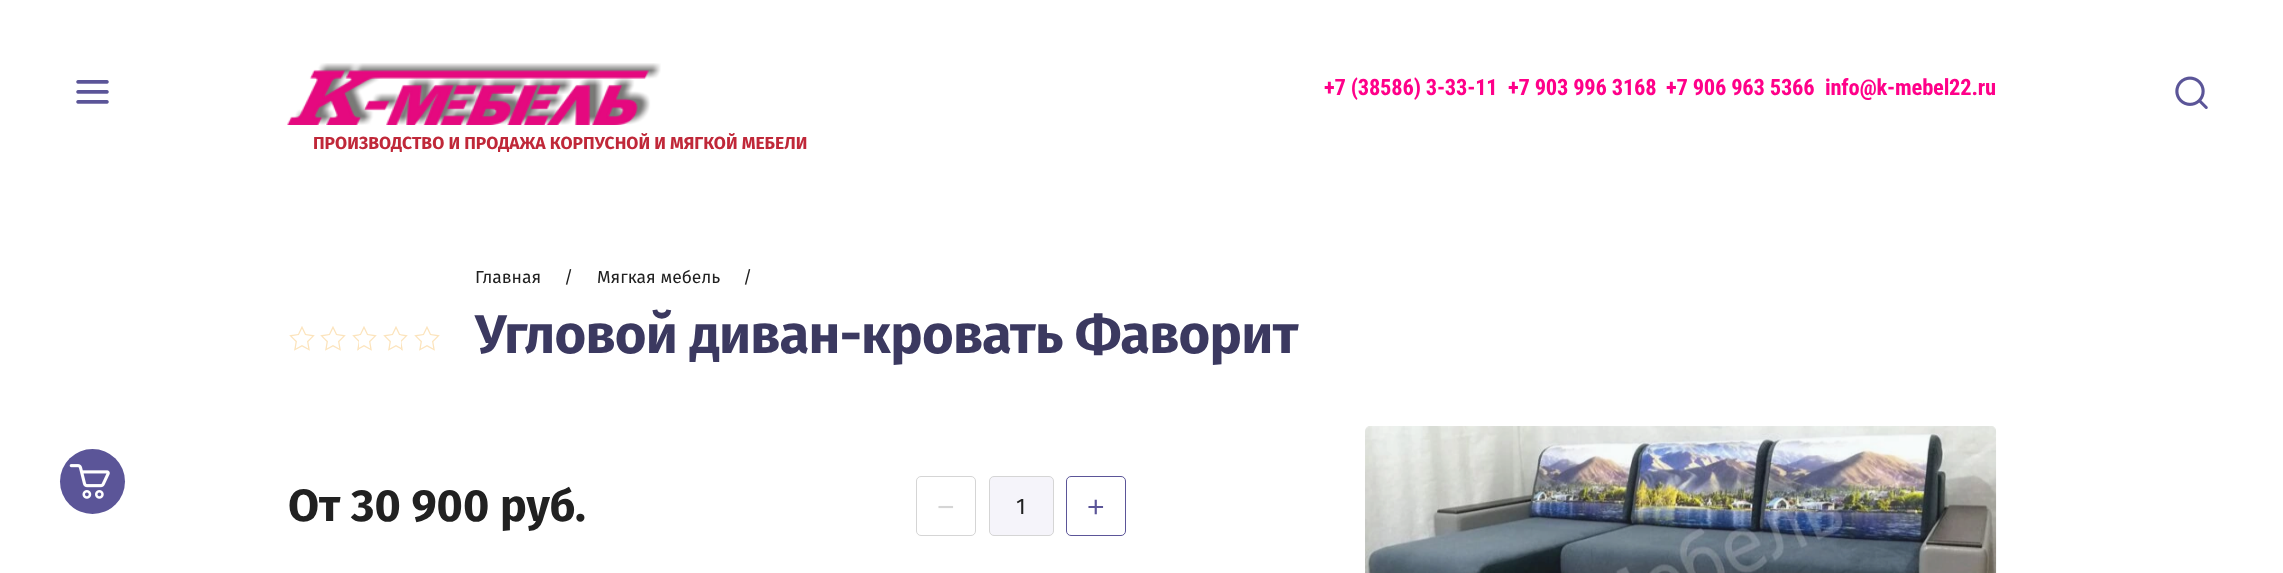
<?xml version="1.0" encoding="UTF-8"?>
<svg xmlns="http://www.w3.org/2000/svg" width="2283" height="573">
    <rect width="100%" height="100%" fill="#FFFFFF"/>
    <image x="76" y="80" width="33" height="24" href="img_01.png"/>
    <text x="1324" y="95" font-family="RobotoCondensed" font-size="22.5" font-weight="700" letter-spacing="-0.2" fill="#FF0089">+7 (38586) 3-33-11</text>
    <text x="1508" y="95" font-family="RobotoCondensed" font-size="22.5" font-weight="700" letter-spacing="-0.2" fill="#FF0089">+7 903 996 3168</text>
    <text x="1666" y="95" font-family="RobotoCondensed" font-size="22.5" font-weight="700" letter-spacing="-0.2" fill="#FF0089">+7 906 963 5366</text>
    <text x="1825" y="95" font-family="RobotoCondensed" font-size="22.5" font-weight="700" letter-spacing="-0.2" fill="#FF0089">info@k-mebel22.ru</text>
    <image x="287" y="63" width="374" height="62" href="img_02.png"/>
    <text x="313" y="149" font-family="Fira Sans" font-size="17.5" font-weight="700" fill="#C02839">ПРОИЗВОДСТВО И ПРОДАЖА КОРПУСНОЙ И МЯГКОЙ МЕБЕЛИ</text>
    <image x="2175" y="76" width="33" height="33" href="img_03.png"/>
    <circle cx="92.5" cy="481.5" r="32.5" fill="#5B5598"/>
    <image x="69" y="464" width="41" height="35" href="img_04.png"/>
    <image x="289" y="326" width="151" height="25" href="img_05.png"/>
    <text x="475" y="283" font-family="Fira Sans" font-size="17.5" fill="#212121">Главная</text>
    <text x="564" y="283" font-family="Fira Sans" font-size="17.5" fill="#212121">/</text>
    <text x="597" y="283" font-family="Fira Sans" font-size="17.5" fill="#212121">Мягкая мебель</text>
    <text x="743" y="283" font-family="Fira Sans" font-size="17.5" fill="#212121">/</text>
    <text x="475" y="353" font-family="Fira Sans" font-size="54.4" font-weight="700" letter-spacing="-0.7" fill="#3B3960">Угловой диван-кровать Фаворит</text>
    <text x="288" y="521" font-family="Fira Sans" font-size="45" font-weight="700" fill="#212121">От 30 900 руб.</text>
    <rect x="916.5" y="476.5" width="59" height="59" rx="4.5" fill="none" stroke="#D5D5D5"/>
    <text x="937" y="517" font-family="Liberation Sans" font-size="30" fill="#D5D5D5">−</text>
    <rect x="989.5" y="476.5" width="64" height="59" rx="4.5" fill="#F5F4FA" stroke="#D5D5D5"/>
    <text x="1016" y="514" font-family="Fira Sans" font-size="22.5" fill="#212121">1</text>
    <rect x="1066.5" y="476.5" width="59" height="59" rx="4.5" fill="none" stroke="#5B5598"/>
    <text x="1087" y="517" font-family="Liberation Sans" font-size="30" fill="#5B5598">+</text>
    <image x="1365" y="426" width="632" height="147" href="img_06.png"/>
    <rect x="1365" y="426" width="631" height="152" rx="5" fill="#D5D5D5" fill-opacity="0.1"/>
</svg>
